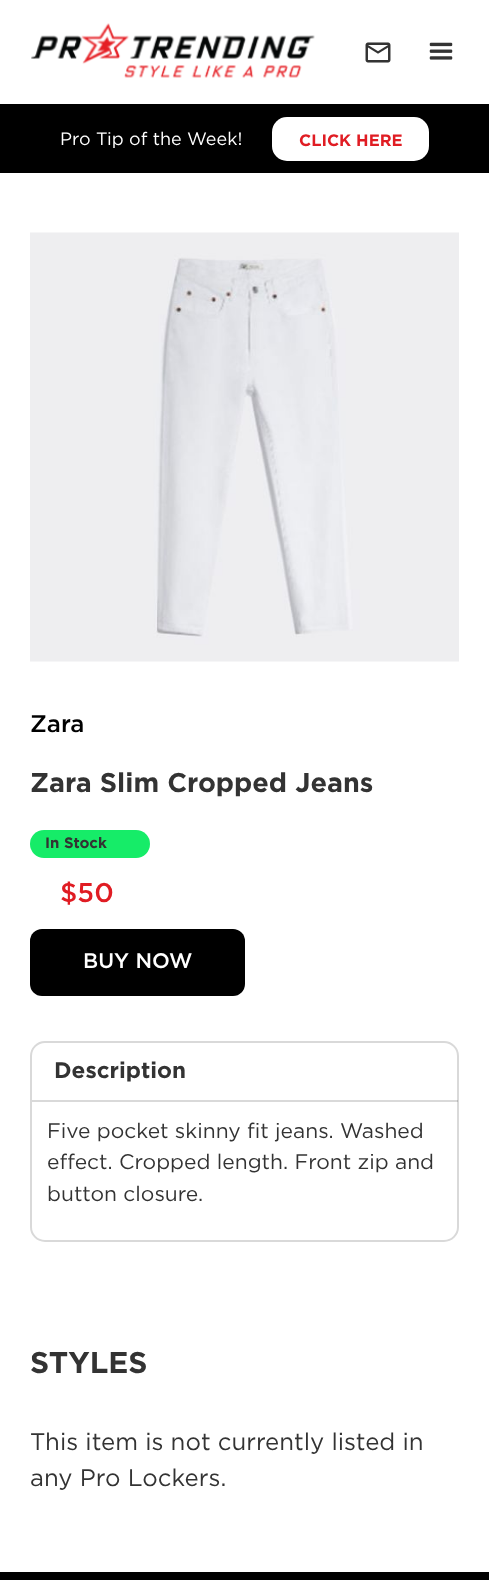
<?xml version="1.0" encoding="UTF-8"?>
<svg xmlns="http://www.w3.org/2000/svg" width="489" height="1580">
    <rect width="100%" height="100%" fill="#FFFFFF"/>
    <image x="31" y="23" width="284" height="55" href="img_01.png"/>
    <image x="365" y="42" width="26" height="21" href="img_02.png"/>
    <image x="429" y="42" width="24" height="18" href="img_03.png"/>
    <rect x="0" y="104" width="489" height="69" fill="#000000"/>
    <text x="60" y="145" font-family="Gotham" font-size="18" fill="#FFFFFF">Pro Tip of the Week!</text>
    <rect x="272" y="117" width="157" height="44" rx="15" fill="#FFFFFF"/>
    <text x="299" y="146" font-family="Gotham" font-size="16.5" font-weight="700" fill="#E01C23">CLICK HERE</text>
    <image x="30" y="232" width="429" height="430" href="img_04.png"/>
    <text x="30" y="732" font-family="Gotham" font-size="24" font-weight="500" fill="#000000">Zara</text>
    <text x="30" y="792" font-family="'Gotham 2'" font-size="27" font-weight="700" fill="#333333">Zara Slim Cropped Jeans</text>
    <rect x="30" y="830" width="120" height="28" rx="14" fill="#16EC68"/>
    <text x="45" y="848" font-family="'Gotham 2'" font-size="15" font-weight="700" fill="#333333">In Stock</text>
    <text x="60" y="902" font-family="Gotham" font-size="27" font-weight="500" fill="#E01C23">$50</text>
    <rect x="30" y="929" width="215" height="67" rx="12" fill="#000000"/>
    <text x="83" y="968" font-family="Gotham" font-size="21" font-weight="500" fill="#FFFFFF">BUY NOW</text>
    <rect x="31" y="1042" width="427" height="199" rx="14" fill="none" stroke="#D9D9D9" stroke-width="2"/>
    <rect x="32" y="1100" width="426" height="2" fill="#000000" fill-opacity="0.15"/>
    <text x="54" y="1078" font-family="'Gotham 2'" font-size="22.5" font-weight="700" fill="#333333">Description</text>
    <text font-family="Gotham" font-size="21" fill="#333333">
        <tspan x="47" y="1138">Five pocket skinny fit jeans. Washed</tspan>
        <tspan x="47" y="1169">effect. Cropped length. Front zip and</tspan>
        <tspan x="47" y="1201">button closure.</tspan>
    </text>
    <text x="30" y="1373" font-family="'Gotham 2'" font-size="30" font-weight="700" fill="#333333">STYLES</text>
    <text font-family="Gotham" font-size="24" fill="#333333">
        <tspan x="30" y="1450">This item is not currently listed in</tspan>
        <tspan x="30" y="1486">any Pro Lockers.</tspan>
    </text>
    <rect x="0" y="1572" width="489" height="8" fill="#000000"/>
</svg>
